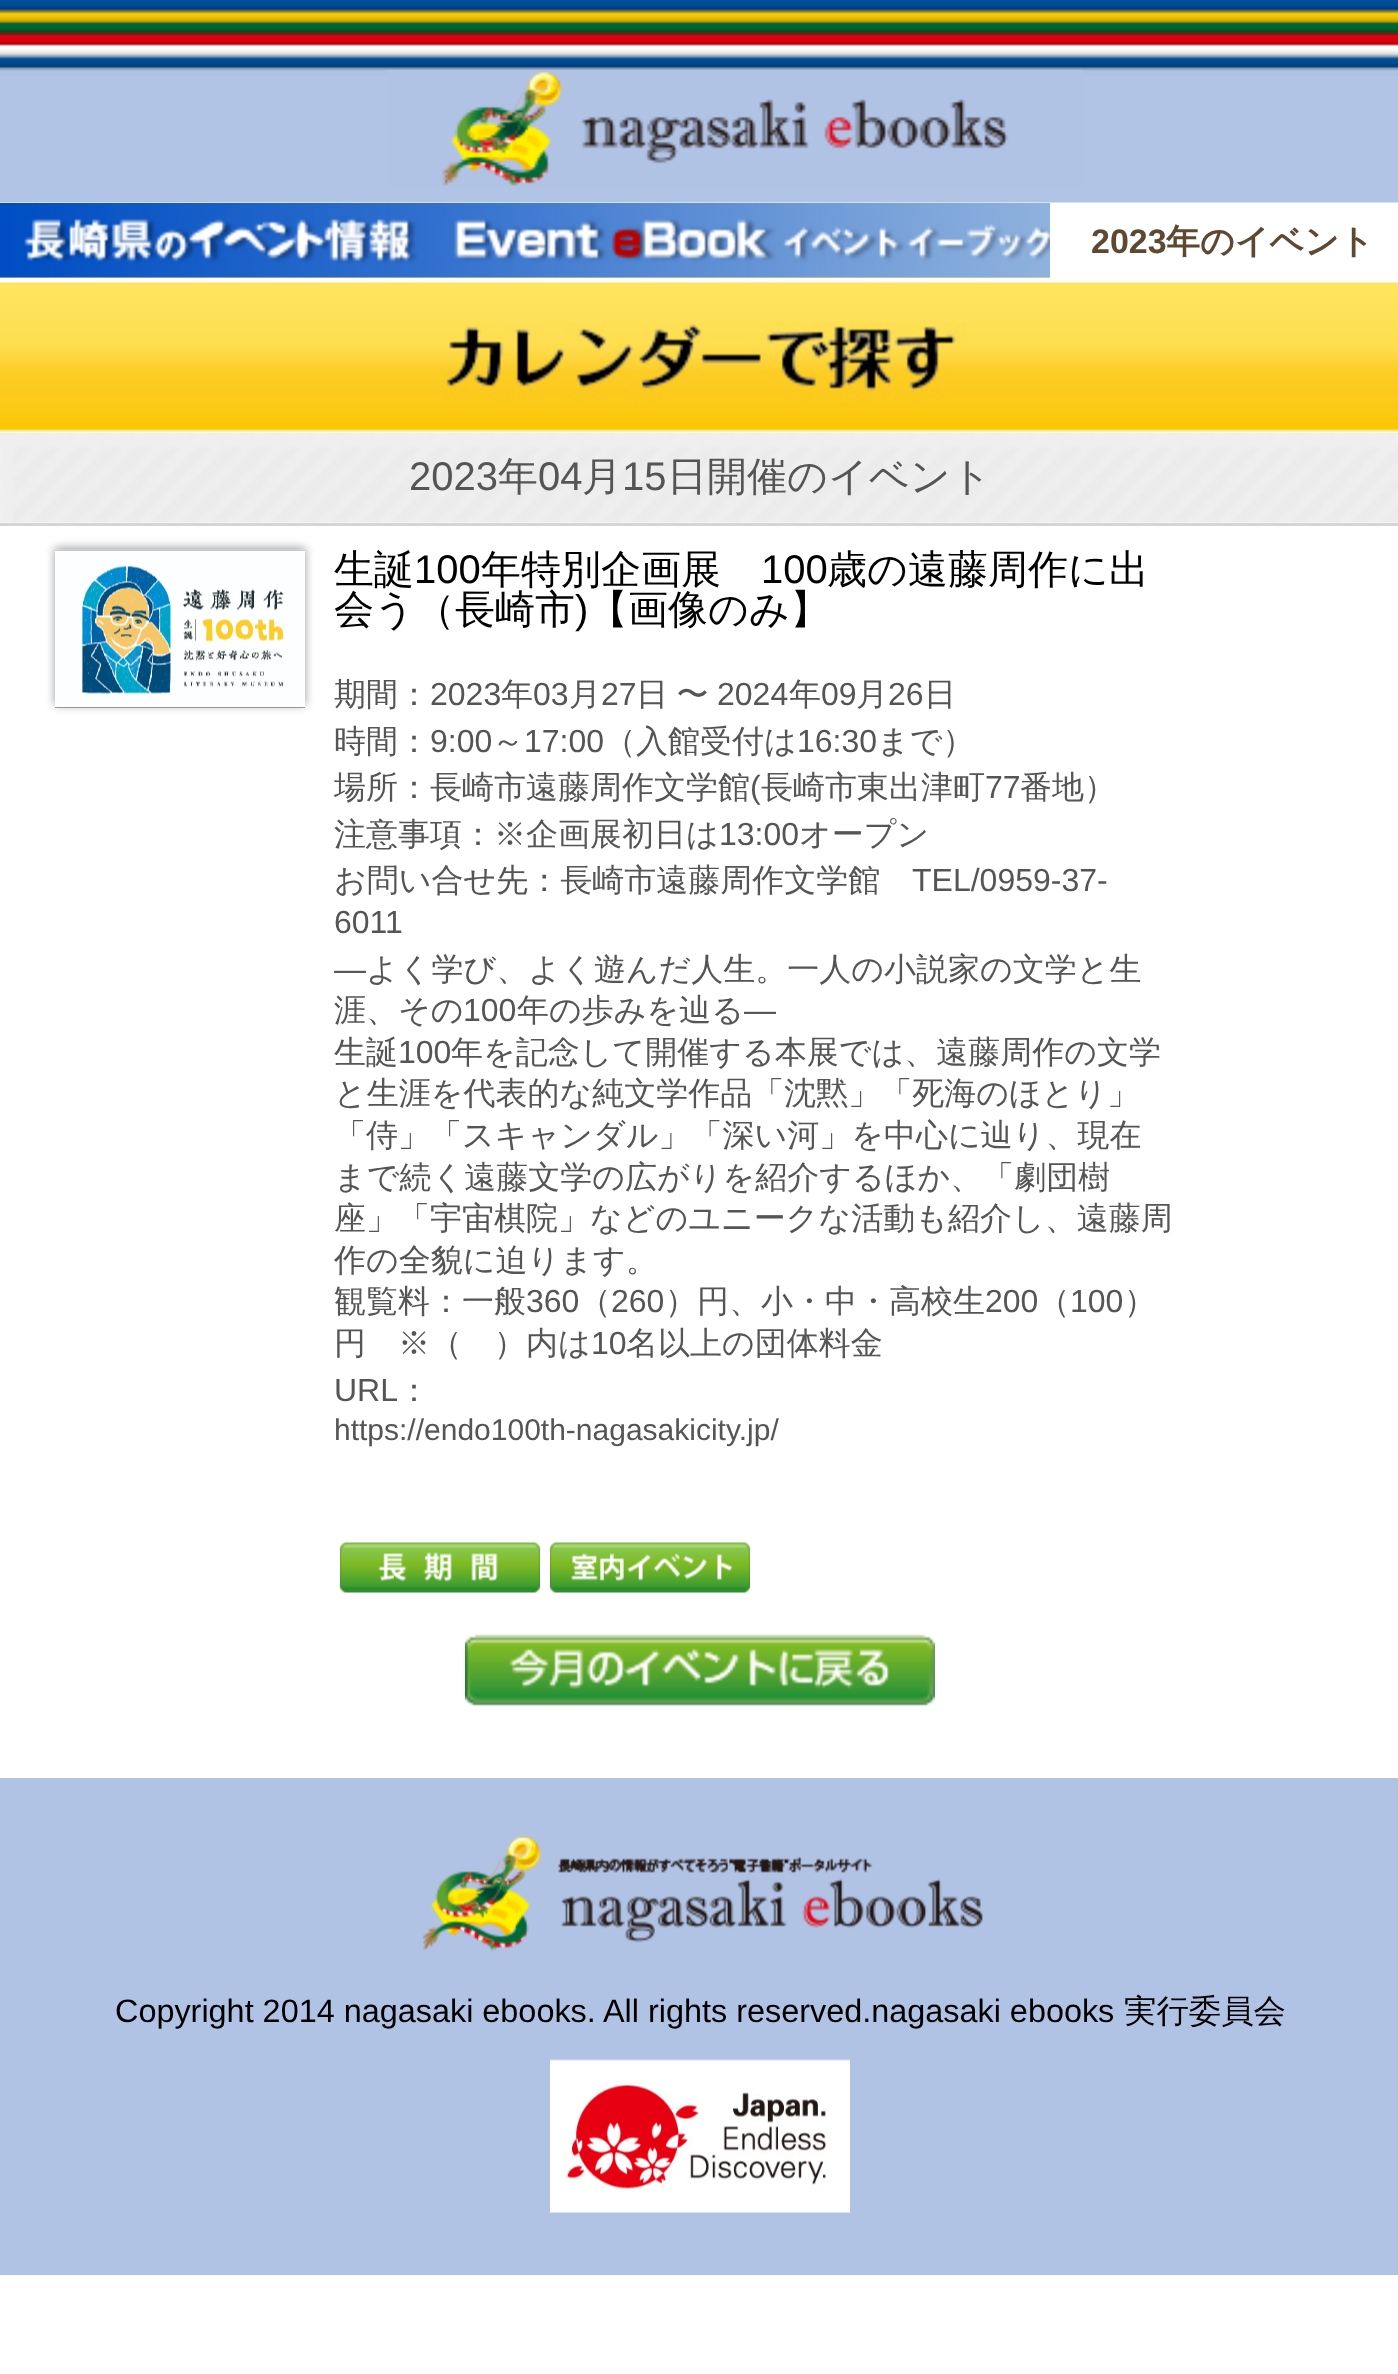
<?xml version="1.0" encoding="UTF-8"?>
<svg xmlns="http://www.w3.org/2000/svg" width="1398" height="2374">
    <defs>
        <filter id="blur1" x="-50%" y="-200%" width="200%" height="500%"><feGaussianBlur stdDeviation="5"/></filter>
    </defs>
    <rect width="100%" height="100%" fill="#FFFFFF"/>
    <image x="0" y="0" width="1398" height="203" href="img_01.png"/>
    <image x="387" y="70" width="696" height="116" href="img_02.png"/>
    <rect x="0" y="277" width="1050" height="1" fill="#FFE35B"/>
    <image x="0" y="203" width="1050" height="75" href="img_03.png"/>
    <text x="1091" y="253" font-family="Liberation Sans" font-size="34" font-weight="700" fill="#5D4932">2023</text>
    <text x="1166" y="253" font-family="WenQuanYi Zen Hei" font-size="34" font-weight="700" fill="#5D4932">年のイベント</text>
    <image x="0" y="282" width="1398" height="151" href="img_04.png"/>
    <image x="0" y="433" width="1398" height="90" href="img_05.png"/>
    <text x="409" y="490" font-family="Liberation Sans" font-size="40" fill="#555555">2023</text>
    <text x="498" y="490" font-family="WenQuanYi Zen Hei" font-size="40" font-weight="500" fill="#555555">年</text>
    <text x="538" y="490" font-family="Liberation Sans" font-size="40" fill="#555555">04</text>
    <text x="582" y="490" font-family="WenQuanYi Zen Hei" font-size="40" font-weight="500" fill="#555555">月</text>
    <text x="622" y="490" font-family="Liberation Sans" font-size="40" fill="#555555">15</text>
    <text x="667" y="490" font-family="WenQuanYi Zen Hei" font-size="40" font-weight="500" fill="#555555">日開催のイベント</text>
    <rect x="0" y="523" width="1398" height="3" fill="#D5D5D5"/>
    <rect x="55" y="548" width="250" height="157" fill="#000000" fill-opacity="0.4" filter="url(#blur1)"/>
    <rect x="55" y="550" width="250" height="158" fill="#333333"/>
    <image x="55" y="549" width="250" height="159" href="img_06.png"/>
    <text x="334" y="583" font-family="WenQuanYi Zen Hei" font-size="40" font-weight="500" fill="#000000">生誕</text>
    <text x="414" y="583" font-family="Liberation Sans" font-size="40" fill="#000000">100</text>
    <text x="481" y="583" font-family="WenQuanYi Zen Hei" font-size="40" font-weight="500" fill="#000000">年特別企画展</text>
    <text x="761" y="583" font-family="Liberation Sans" font-size="40" fill="#000000">100</text>
    <text x="827" y="583" font-family="WenQuanYi Zen Hei" font-size="40" font-weight="500" fill="#000000">歳の遠藤周作に出</text>
    <text x="334" y="623" font-family="WenQuanYi Zen Hei" font-size="40" font-weight="500" fill="#000000">会う（長崎市</text>
    <text x="575" y="623" font-family="Liberation Sans" font-size="40" fill="#000000">)</text>
    <text x="588" y="623" font-family="WenQuanYi Zen Hei" font-size="40" font-weight="500" fill="#000000">【画像のみ】</text>
    <text x="334" y="705" font-family="WenQuanYi Zen Hei" font-size="32" font-weight="500" fill="#555555">期間：</text>
    <text x="430" y="705" font-family="Liberation Sans" font-size="32" fill="#555555">2023</text>
    <text x="501" y="705" font-family="WenQuanYi Zen Hei" font-size="32" font-weight="500" fill="#555555">年</text>
    <text x="533" y="705" font-family="Liberation Sans" font-size="32" fill="#555555">03</text>
    <text x="569" y="705" font-family="WenQuanYi Zen Hei" font-size="32" font-weight="500" fill="#555555">月</text>
    <text x="601" y="705" font-family="Liberation Sans" font-size="32" fill="#555555">27</text>
    <text x="636" y="705" word-spacing="-1" font-family="WenQuanYi Zen Hei" font-size="32" font-weight="500" fill="#555555">日 〜</text>
    <text x="717" y="705" font-family="Liberation Sans" font-size="32" fill="#555555">2024</text>
    <text x="789" y="705" font-family="WenQuanYi Zen Hei" font-size="32" font-weight="500" fill="#555555">年</text>
    <text x="821" y="705" font-family="Liberation Sans" font-size="32" fill="#555555">09</text>
    <text x="856" y="705" font-family="WenQuanYi Zen Hei" font-size="32" font-weight="500" fill="#555555">月</text>
    <text x="888" y="705" font-family="Liberation Sans" font-size="32" fill="#555555">26</text>
    <text x="924" y="705" font-family="WenQuanYi Zen Hei" font-size="32" font-weight="500" fill="#555555">日</text>
    <text x="334" y="752" font-family="WenQuanYi Zen Hei" font-size="32" font-weight="500" fill="#555555">時間：</text>
    <text x="430" y="752" font-family="Liberation Sans" font-size="32" fill="#555555">9:00</text>
    <text x="492" y="752" font-family="WenQuanYi Zen Hei" font-size="32" font-weight="500" fill="#555555">～</text>
    <text x="524" y="752" font-family="Liberation Sans" font-size="32" fill="#555555">17:00</text>
    <text x="604" y="752" font-family="WenQuanYi Zen Hei" font-size="32" font-weight="500" fill="#555555">（入館受付は</text>
    <text x="797" y="752" font-family="Liberation Sans" font-size="32" fill="#555555">16:30</text>
    <text x="877" y="752" font-family="WenQuanYi Zen Hei" font-size="32" font-weight="500" fill="#555555">まで）</text>
    <text x="334" y="798" font-family="WenQuanYi Zen Hei" font-size="32" font-weight="500" fill="#555555">場所：長崎市遠藤周作文学館</text>
    <text x="750" y="798" font-family="Liberation Sans" font-size="32" fill="#555555">(</text>
    <text x="761" y="798" font-family="WenQuanYi Zen Hei" font-size="32" font-weight="500" fill="#555555">長崎市東出津町</text>
    <text x="985" y="798" font-family="Liberation Sans" font-size="32" fill="#555555">77</text>
    <text x="1020" y="798" font-family="WenQuanYi Zen Hei" font-size="32" font-weight="500" fill="#555555">番地）</text>
    <text x="334" y="845" font-family="WenQuanYi Zen Hei" font-size="32" font-weight="500" fill="#555555">注意事項：※企画展初日は</text>
    <text x="719" y="845" font-family="Liberation Sans" font-size="32" fill="#555555">13:00</text>
    <text x="799" y="845" font-family="WenQuanYi Zen Hei" font-size="32" font-weight="500" fill="#555555">オープン</text>
    <text x="334" y="891" font-family="WenQuanYi Zen Hei" font-size="32" font-weight="500" fill="#555555">お問い合せ先：長崎市遠藤周作文学館</text>
    <text x="912" y="891" font-family="Liberation Sans" font-size="32" fill="#555555">TEL/0959-37-</text>
    <text font-family="Liberation Sans" font-size="32" fill="#555555">
        <tspan x="334" y="933">6011</tspan>
        <tspan x="334" y="980">―</tspan>
    </text>
    <text x="366" y="980" font-family="WenQuanYi Zen Hei" font-size="32" font-weight="500" fill="#555555">よく学び、よく遊んだ人生。一人の小説家の文学と生</text>
    <text x="334" y="1021" font-family="WenQuanYi Zen Hei" font-size="32" font-weight="500" fill="#555555">涯、その</text>
    <text x="463" y="1021" font-family="Liberation Sans" font-size="32" fill="#555555">100</text>
    <text x="517" y="1021" font-family="WenQuanYi Zen Hei" font-size="32" font-weight="500" fill="#555555">年の歩みを辿る</text>
    <text x="744" y="1021" font-family="Liberation Sans" font-size="32" fill="#555555">―</text>
    <text x="334" y="1063" font-family="WenQuanYi Zen Hei" font-size="32" font-weight="500" fill="#555555">生誕</text>
    <text x="398" y="1063" font-family="Liberation Sans" font-size="32" fill="#555555">100</text>
    <text x="451" y="1063" font-family="WenQuanYi Zen Hei" font-size="32" font-weight="500" fill="#555555">年を記念して開催する本展では、遠藤周作の文学</text>
    <text font-family="WenQuanYi Zen Hei" font-size="32" font-weight="500" fill="#555555">
        <tspan x="334" y="1104">と生涯を代表的な純文学作品「沈黙」「死海のほとり」</tspan>
        <tspan x="334" y="1146">「侍」「スキャンダル」「深い河」を中心に辿り、現在</tspan>
        <tspan x="334" y="1188">まで続く遠藤文学の広がりを紹介するほか、「劇団樹</tspan>
        <tspan x="334" y="1229">座」「宇宙棋院」などのユニークな活動も紹介し、遠藤周</tspan>
        <tspan x="334" y="1271">作の全貌に迫ります。</tspan>
        <tspan x="334" y="1312">観覧料：一般</tspan>
    </text>
    <text x="526" y="1312" font-family="Liberation Sans" font-size="32" fill="#555555">360</text>
    <text x="579" y="1312" font-family="WenQuanYi Zen Hei" font-size="32" font-weight="500" fill="#555555">（</text>
    <text x="611" y="1312" font-family="Liberation Sans" font-size="32" fill="#555555">260</text>
    <text x="665" y="1312" font-family="WenQuanYi Zen Hei" font-size="32" font-weight="500" fill="#555555">）円、小・中・高校生</text>
    <text x="985" y="1312" font-family="Liberation Sans" font-size="32" fill="#555555">200</text>
    <text x="1038" y="1312" font-family="WenQuanYi Zen Hei" font-size="32" font-weight="500" fill="#555555">（</text>
    <text x="1070" y="1312" font-family="Liberation Sans" font-size="32" fill="#555555">100</text>
    <text x="1124" y="1312" font-family="WenQuanYi Zen Hei" font-size="32" font-weight="500" fill="#555555">）</text>
    <text x="334" y="1354" font-family="WenQuanYi Zen Hei" font-size="32" font-weight="500" fill="#555555">円　※（　）内は</text>
    <text x="591" y="1354" font-family="Liberation Sans" font-size="32" fill="#555555">10</text>
    <text x="626" y="1354" font-family="WenQuanYi Zen Hei" font-size="32" font-weight="500" fill="#555555">名以上の団体料金</text>
    <text x="334" y="1401" font-family="Liberation Sans" font-size="32" fill="#555555">URL</text>
    <text x="398" y="1401" font-family="WenQuanYi Zen Hei" font-size="32" font-weight="500" fill="#555555">：</text>
    <text x="334" y="1440" font-family="Liberation Sans" font-size="30" fill="#555555">https://endo100th-nagasakicity.jp/</text>
    <image x="340" y="1542" width="200" height="51" href="img_07.png"/>
    <image x="550" y="1542" width="200" height="51" href="img_08.png"/>
    <image x="465" y="1634" width="470" height="72" href="img_09.png"/>
    <rect x="0" y="1778" width="1398" height="497" fill="#B1C3E5"/>
    <image x="422" y="1835" width="561" height="117" href="img_10.png"/>
    <text x="115" y="2022" font-family="Liberation Sans" font-size="32.4" fill="#000000">Copyright 2014 nagasaki ebooks. All rights reserved.nagasaki ebooks</text>
    <text x="1124" y="2022" font-family="WenQuanYi Zen Hei" font-size="32.4" font-weight="500" fill="#000000">実行委員会</text>
    <image x="550" y="2059" width="300" height="154" href="img_11.png"/>
</svg>
